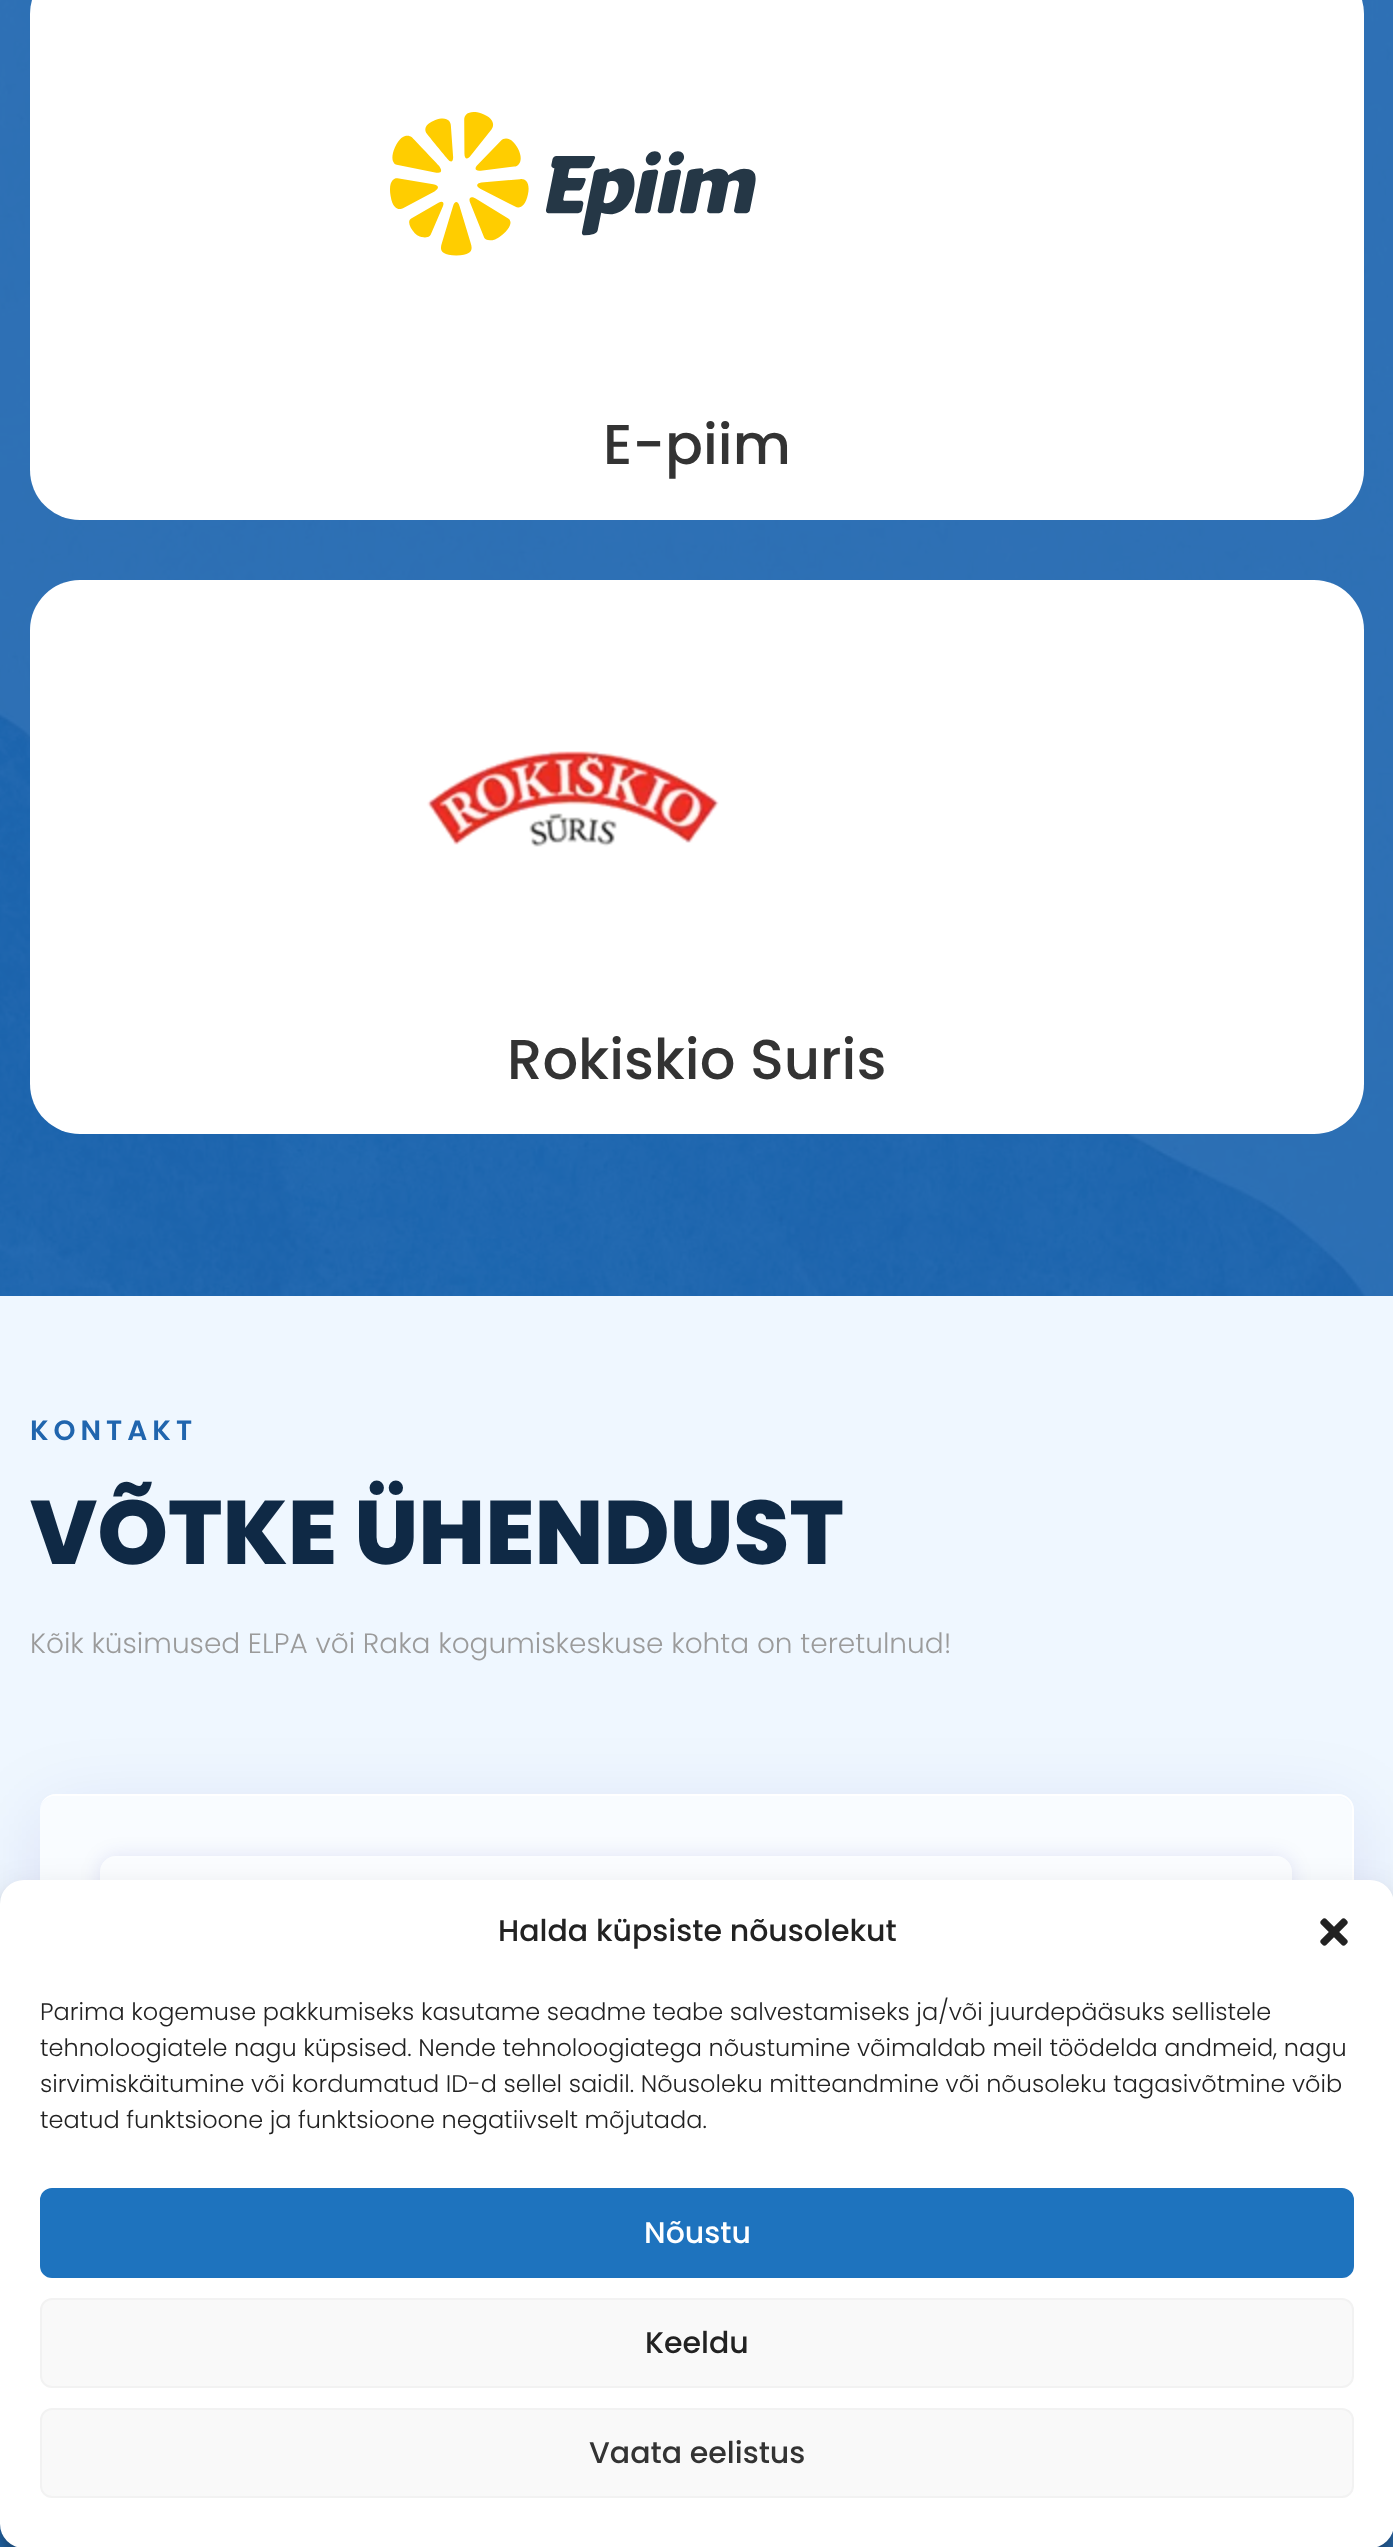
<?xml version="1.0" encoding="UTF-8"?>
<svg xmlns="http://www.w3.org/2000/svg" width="1393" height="2547">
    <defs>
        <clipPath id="clip1"><path d="M 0 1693 H 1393 V 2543 H 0 Z M 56 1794 H 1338 C 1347 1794 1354 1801 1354 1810 V 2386 C 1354 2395 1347 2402 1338 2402 H 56 C 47 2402 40 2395 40 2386 V 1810 C 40 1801 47 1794 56 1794 Z" clip-rule="evenodd"/></clipPath>
        <filter id="blur1" x="-50%" y="-200%" width="200%" height="500%"><feGaussianBlur stdDeviation="40"/></filter>
        <clipPath id="clip2"><path d="M 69 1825 H 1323 V 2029 H 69 Z M 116 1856 H 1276 C 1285 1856 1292 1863 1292 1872 V 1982 C 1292 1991 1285 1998 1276 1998 H 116 C 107 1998 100 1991 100 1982 V 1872 C 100 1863 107 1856 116 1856 Z" clip-rule="evenodd"/></clipPath>
        <filter id="blur2" x="-50%" y="-200%" width="200%" height="500%"><feGaussianBlur stdDeviation="10"/></filter>
        <filter id="blur3" x="-50%" y="-200%" width="200%" height="500%"><feGaussianBlur stdDeviation="6"/></filter>
        <filter id="blur4" x="-50%" y="-200%" width="200%" height="500%"><feGaussianBlur stdDeviation="20"/></filter>
    </defs>
    <rect width="100%" height="100%" fill="#2065AE"/>
    <image x="0" y="0" width="1393" height="1296" href="img_01.png"/>
    <rect x="30" y="-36" width="1334" height="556" rx="50" fill="#FFFFFF"/>
    <image x="390" y="112" width="366" height="144" href="img_02.png"/>
    <text x="603" y="464" font-family="Poppins" font-size="56" font-weight="500" fill="#333333">E-piim</text>
    <rect x="30" y="580" width="1334" height="554" rx="50" fill="#FFFFFF"/>
    <image x="427" y="751" width="292" height="96" href="img_03.png"/>
    <text x="507" y="1079" font-family="Poppins" font-size="56" font-weight="500" fill="#333333">Rokiskio Suris</text>
    <rect x="0" y="1296" width="1393" height="608" fill="#EFF7FF"/>
    <text x="30" y="1440" font-family="Poppins" font-size="28" font-weight="600" letter-spacing="5" fill="#2065AE">KONTAKT</text>
    <text x="30" y="1564" font-family="Poppins" font-size="90" font-weight="800" fill="#0F2945">VÕTKE ÜHENDUST</text>
    <text x="30" y="1653" font-family="Poppins" font-size="28" font-weight="300" fill="#9B9B9B">Kõik küsimused ELPA või Raka kogumiskeskuse kohta on teretulnud!</text>
    <image x="0" y="2524" width="1393" height="23" href="img_05.png"/>
    <g clip-path="url(#clip1)">
        <rect x="40" y="1814" width="1314" height="608" rx="16" fill="#232894" fill-opacity="0.1" filter="url(#blur1)"/>
    </g>
    <path d="M 56 1796 H 1338 C 1346 1796 1352 1802 1352 1810 V 2386 C 1352 2395 1346 2402 1338 2402 H 56 C 47 2402 40 2395 40 2386 V 1810 C 40 1802 47 1796 56 1796 Z" fill="#FFFFFF" fill-opacity="0.4"/>
    <path d="M 56 1794 H 1338 C 1347 1794 1354 1801 1354 1810 V 2386 C 1354 2395 1347 2402 1338 2402 H 56 C 47 2402 40 2395 40 2386 V 1810 C 40 1801 47 1794 56 1794 Z M 56 1796 H 1338 C 1346 1796 1352 1802 1352 1810 V 2386 C 1352 2395 1346 2402 1338 2402 H 56 C 47 2402 40 2395 40 2386 V 1810 C 40 1802 47 1796 56 1796 Z" fill="#FFFFFF" fill-rule="evenodd"/>
    <rect x="40" y="1796" width="1312" height="606" rx="16" fill="#FFFFFF" fill-opacity="0.4"/>
    <g clip-path="url(#clip2)">
        <rect x="100" y="1856" width="1192" height="142" rx="16" fill="#232894" fill-opacity="0.1" filter="url(#blur2)"/>
    </g>
    <rect x="100" y="1856" width="1192" height="142" rx="16" fill="#FFFFFF" fill-opacity="0.4"/>
    <rect x="0" y="1892" width="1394" height="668" rx="24" fill="#000000" fill-opacity="0.23" filter="url(#blur3)"/>
    <rect x="0" y="1900" width="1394" height="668" rx="24" fill="#000000" fill-opacity="0.19" filter="url(#blur4)"/>
    <rect x="0" y="1880" width="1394" height="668" rx="24" fill="#FFFFFF"/>
    <text x="498" y="1941" font-family="Poppins" font-size="30" font-weight="500" fill="#222222">Halda küpsiste nõusolekut</text>
    <image x="1320" y="1918" width="28" height="28" href="img_04.png"/>
    <text font-family="Poppins" font-size="24" font-weight="300" fill="#222222">
        <tspan x="40" y="2020">Parima kogemuse pakkumiseks kasutame seadme teabe salvestamiseks ja/või juurdepääsuks sellistele</tspan>
        <tspan x="40" y="2056">tehnoloogiatele nagu küpsised. Nende tehnoloogiatega nõustumine võimaldab meil töödelda andmeid, nagu</tspan>
        <tspan x="40" y="2092">sirvimiskäitumine või kordumatud ID-d sellel saidil. Nõusoleku mitteandmine või nõusoleku tagasivõtmine võib</tspan>
        <tspan x="40" y="2128">teatud funktsioone ja funktsioone negatiivselt mõjutada.</tspan>
    </text>
    <rect x="41" y="2189" width="1312" height="88" rx="11" fill="#1E73BE" stroke="#1E73BE" stroke-width="2"/>
    <text x="644" y="2243" font-family="Poppins" font-size="30" font-weight="500" fill="#FFFFFF">Nõustu</text>
    <rect x="41" y="2299" width="1312" height="88" rx="11" fill="#F9F9F9" stroke="#F2F2F2" stroke-width="2"/>
    <text x="645" y="2353" font-family="Poppins" font-size="30" font-weight="500" fill="#222222">Keeldu</text>
    <rect x="41" y="2409" width="1312" height="88" rx="11" fill="#F9F9F9" stroke="#F2F2F2" stroke-width="2"/>
    <text x="589" y="2463" font-family="Poppins" font-size="30" font-weight="500" fill="#333333">Vaata eelistus</text>
</svg>
